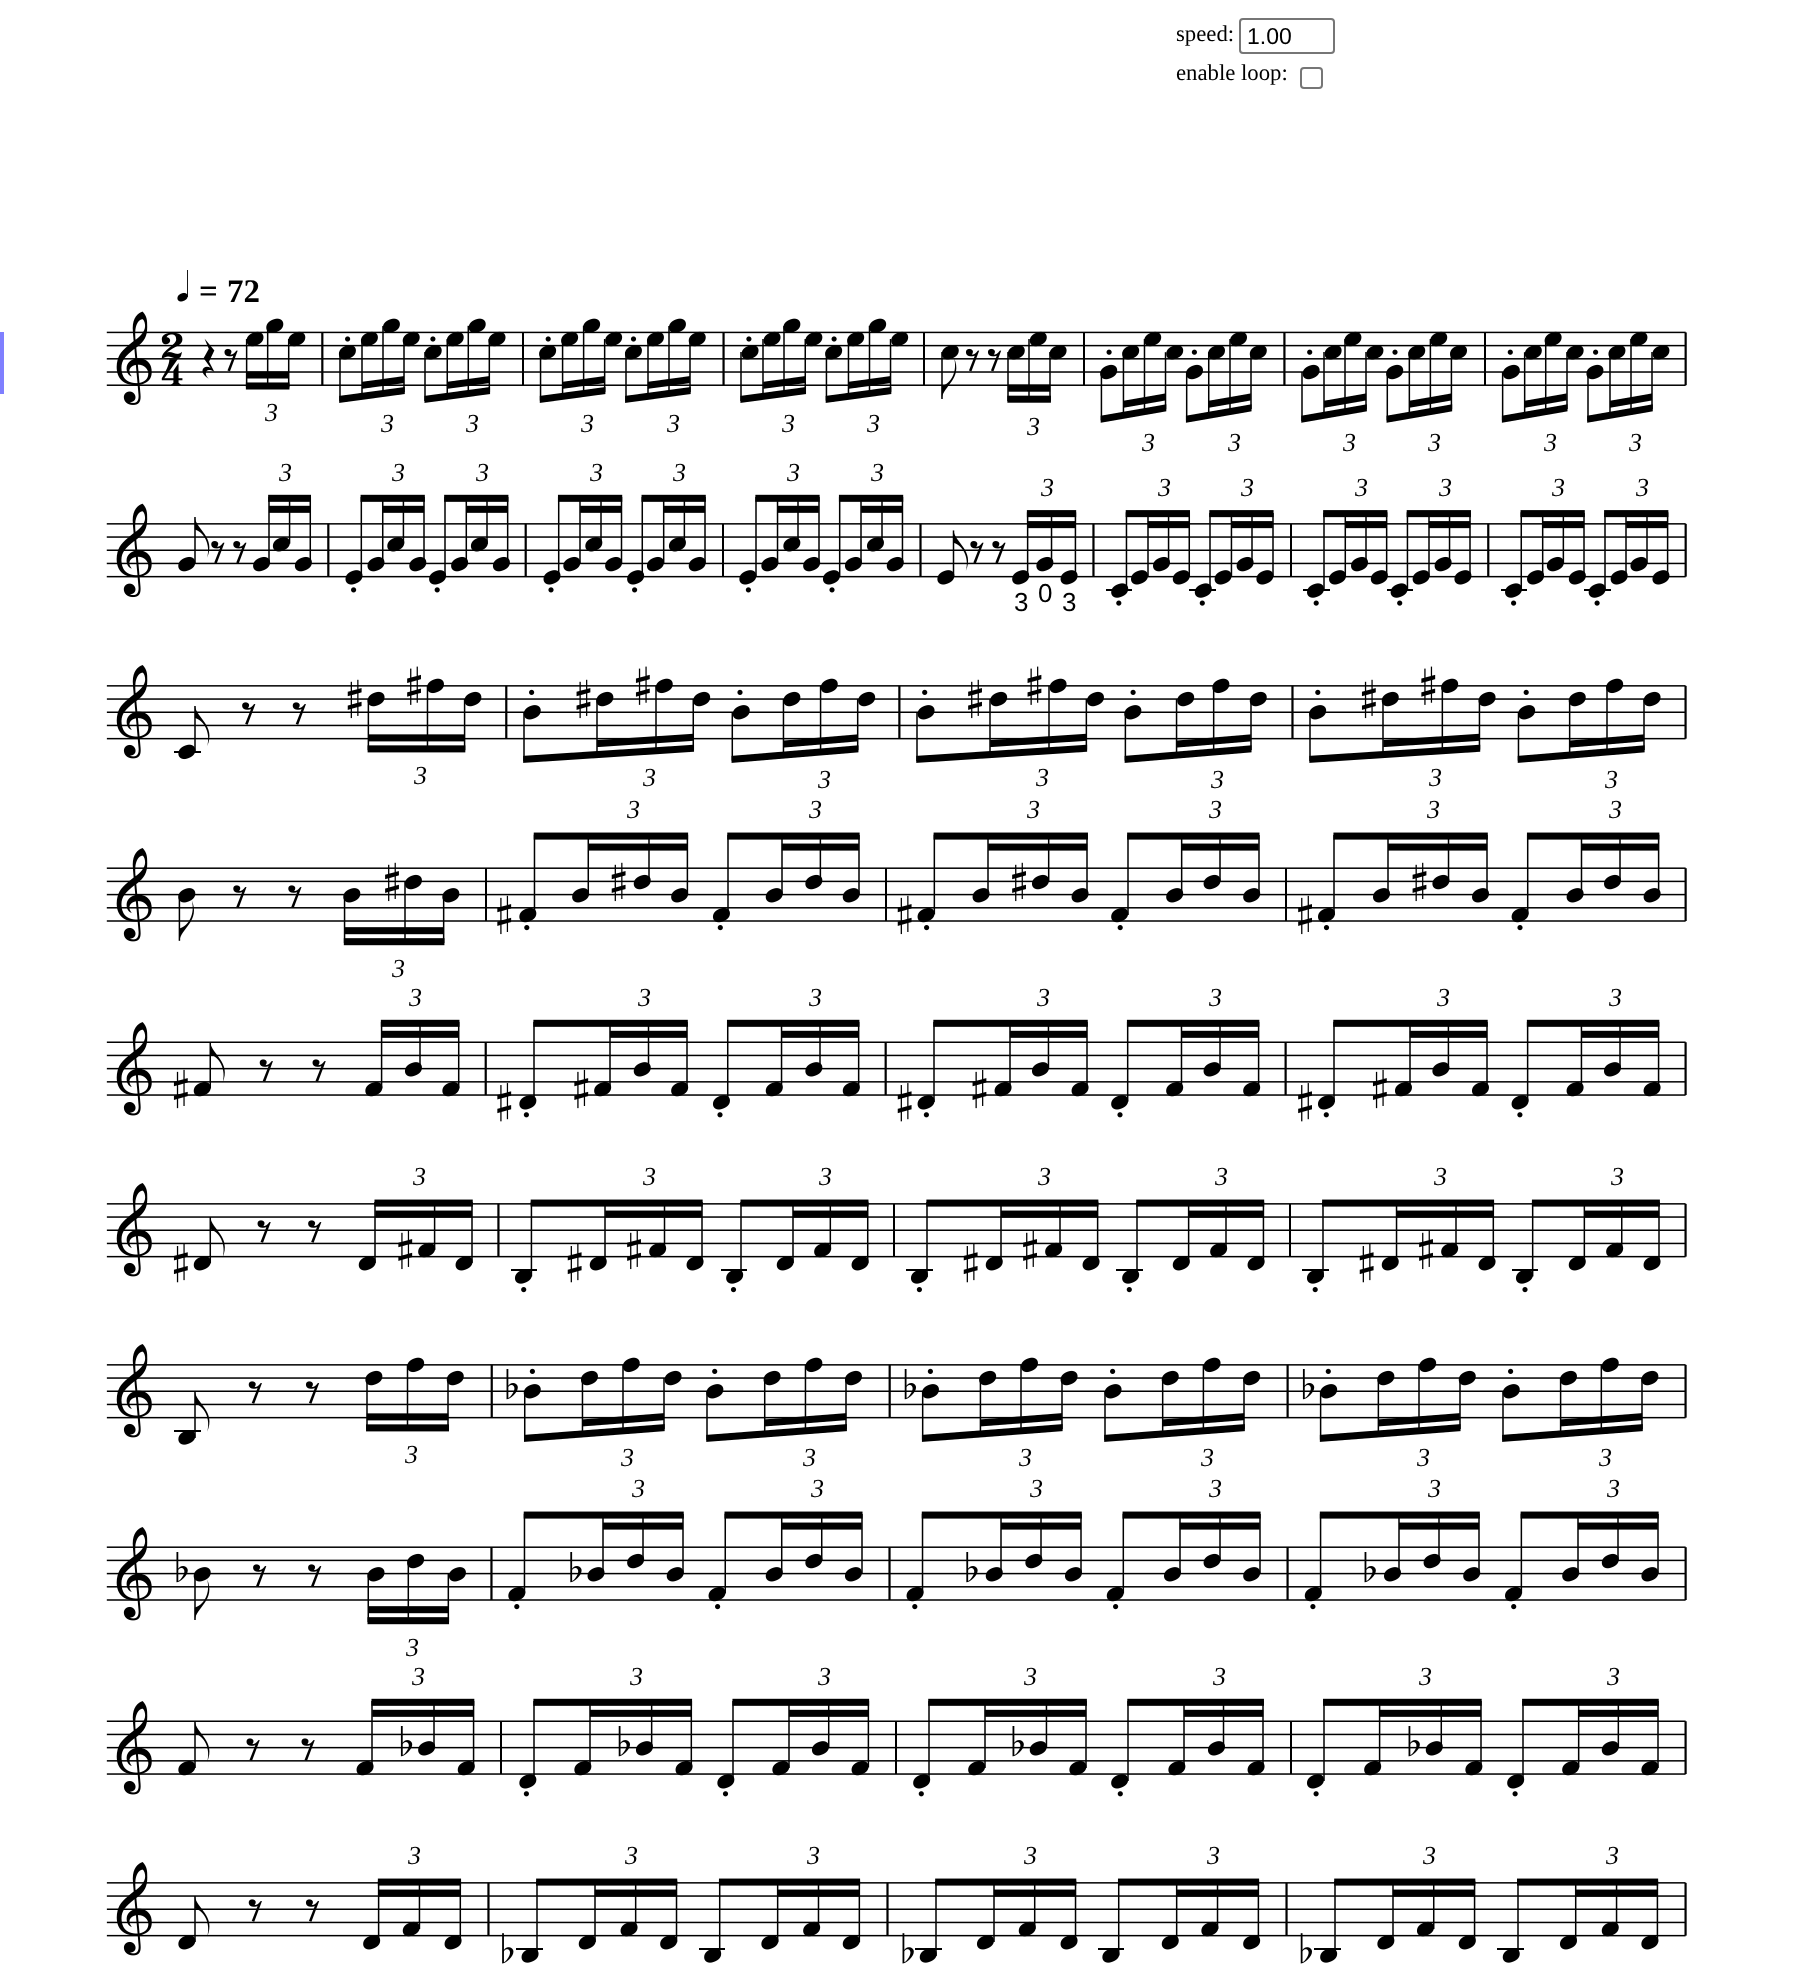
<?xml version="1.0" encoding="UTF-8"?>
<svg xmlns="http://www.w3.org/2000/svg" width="1795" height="1964">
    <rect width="100%" height="100%" fill="#FFFFFF"/>
    <text x="1176" y="41" font-family="Liberation Serif" font-size="22.75" fill="#000000">speed:</text>
    <rect x="1240" y="19" width="94" height="34" rx="3" fill="none" stroke="#767676" stroke-width="2"/>
    <text x="1247" y="44" font-family="Liberation Sans" font-size="23" fill="#000000">1.00</text>
    <text x="1176" y="80" font-family="Liberation Serif" font-size="22.75" fill="#000000">enable loop:</text>
    <rect x="1301" y="68" width="21" height="20" rx="3" fill="none" stroke="#767676" stroke-width="2"/>
    <image x="0" y="270" width="1687" height="153" href="img_01.png"/>
    <text x="199" y="302" font-family="Liberation Serif" font-size="33" font-weight="700" fill="#000000">=</text>
    <text x="227" y="302" font-family="Liberation Serif" font-size="33" font-weight="700" fill="#000000">72</text>
    <text x="265" y="421" font-family="Liberation Serif" font-size="26" font-style="italic" fill="#000000">3</text>
    <text x="381" y="432" font-family="Liberation Serif" font-size="26" font-style="italic" fill="#000000">3</text>
    <text x="466" y="432" font-family="Liberation Serif" font-size="26" font-style="italic" fill="#000000">3</text>
    <text x="581" y="432" font-family="Liberation Serif" font-size="26" font-style="italic" fill="#000000">3</text>
    <text x="667" y="432" font-family="Liberation Serif" font-size="26" font-style="italic" fill="#000000">3</text>
    <text x="782" y="432" font-family="Liberation Serif" font-size="26" font-style="italic" fill="#000000">3</text>
    <text x="867" y="432" font-family="Liberation Serif" font-size="26" font-style="italic" fill="#000000">3</text>
    <text x="1027" y="435" font-family="Liberation Serif" font-size="26" font-style="italic" fill="#000000">3</text>
    <text x="1142" y="451" font-family="Liberation Serif" font-size="26" font-style="italic" fill="#000000">3</text>
    <text x="1228" y="451" font-family="Liberation Serif" font-size="26" font-style="italic" fill="#000000">3</text>
    <text x="1343" y="451" font-family="Liberation Serif" font-size="26" font-style="italic" fill="#000000">3</text>
    <text x="1428" y="451" font-family="Liberation Serif" font-size="26" font-style="italic" fill="#000000">3</text>
    <text x="1544" y="451" font-family="Liberation Serif" font-size="26" font-style="italic" fill="#000000">3</text>
    <text x="1629" y="451" font-family="Liberation Serif" font-size="26" font-style="italic" fill="#000000">3</text>
    <text x="279" y="481" font-family="Liberation Serif" font-size="26" font-style="italic" fill="#000000">3</text>
    <text x="392" y="481" font-family="Liberation Serif" font-size="26" font-style="italic" fill="#000000">3</text>
    <text x="476" y="481" font-family="Liberation Serif" font-size="26" font-style="italic" fill="#000000">3</text>
    <text x="590" y="481" font-family="Liberation Serif" font-size="26" font-style="italic" fill="#000000">3</text>
    <text x="673" y="481" font-family="Liberation Serif" font-size="26" font-style="italic" fill="#000000">3</text>
    <text x="787" y="481" font-family="Liberation Serif" font-size="26" font-style="italic" fill="#000000">3</text>
    <text x="871" y="481" font-family="Liberation Serif" font-size="26" font-style="italic" fill="#000000">3</text>
    <text x="1041" y="496" font-family="Liberation Serif" font-size="26" font-style="italic" fill="#000000">3</text>
    <text x="1158" y="496" font-family="Liberation Serif" font-size="26" font-style="italic" fill="#000000">3</text>
    <text x="1241" y="496" font-family="Liberation Serif" font-size="26" font-style="italic" fill="#000000">3</text>
    <text x="1355" y="496" font-family="Liberation Serif" font-size="26" font-style="italic" fill="#000000">3</text>
    <text x="1439" y="496" font-family="Liberation Serif" font-size="26" font-style="italic" fill="#000000">3</text>
    <text x="1552" y="496" font-family="Liberation Serif" font-size="26" font-style="italic" fill="#000000">3</text>
    <text x="1636" y="496" font-family="Liberation Serif" font-size="26" font-style="italic" fill="#000000">3</text>
    <text x="1014" y="611" font-family="Liberation Sans" font-size="26" fill="#000000">3</text>
    <text x="1038" y="602" font-family="Liberation Sans" font-size="26" fill="#000000">0</text>
    <text x="1062" y="611" font-family="Liberation Sans" font-size="26" fill="#000000">3</text>
    <image x="106" y="494" width="1581" height="112" href="img_02.png"/>
    <image x="106" y="665" width="1581" height="98" href="img_03.png"/>
    <text x="414" y="784" font-family="Liberation Serif" font-size="26" font-style="italic" fill="#000000">3</text>
    <text x="643" y="786" font-family="Liberation Serif" font-size="26" font-style="italic" fill="#000000">3</text>
    <text x="818" y="788" font-family="Liberation Serif" font-size="26" font-style="italic" fill="#000000">3</text>
    <text x="1036" y="786" font-family="Liberation Serif" font-size="26" font-style="italic" fill="#000000">3</text>
    <text x="1211" y="788" font-family="Liberation Serif" font-size="26" font-style="italic" fill="#000000">3</text>
    <text x="1429" y="786" font-family="Liberation Serif" font-size="26" font-style="italic" fill="#000000">3</text>
    <text x="1605" y="788" font-family="Liberation Serif" font-size="26" font-style="italic" fill="#000000">3</text>
    <text x="627" y="818" font-family="Liberation Serif" font-size="26" font-style="italic" fill="#000000">3</text>
    <text x="809" y="818" font-family="Liberation Serif" font-size="26" font-style="italic" fill="#000000">3</text>
    <text x="1027" y="818" font-family="Liberation Serif" font-size="26" font-style="italic" fill="#000000">3</text>
    <text x="1209" y="818" font-family="Liberation Serif" font-size="26" font-style="italic" fill="#000000">3</text>
    <text x="1427" y="818" font-family="Liberation Serif" font-size="26" font-style="italic" fill="#000000">3</text>
    <text x="1609" y="818" font-family="Liberation Serif" font-size="26" font-style="italic" fill="#000000">3</text>
    <image x="106" y="832" width="1581" height="114" href="img_04.png"/>
    <text x="392" y="977" font-family="Liberation Serif" font-size="26" font-style="italic" fill="#000000">3</text>
    <text x="409" y="1006" font-family="Liberation Serif" font-size="26" font-style="italic" fill="#000000">3</text>
    <text x="638" y="1006" font-family="Liberation Serif" font-size="26" font-style="italic" fill="#000000">3</text>
    <text x="809" y="1006" font-family="Liberation Serif" font-size="26" font-style="italic" fill="#000000">3</text>
    <text x="1037" y="1006" font-family="Liberation Serif" font-size="26" font-style="italic" fill="#000000">3</text>
    <text x="1209" y="1006" font-family="Liberation Serif" font-size="26" font-style="italic" fill="#000000">3</text>
    <text x="1437" y="1006" font-family="Liberation Serif" font-size="26" font-style="italic" fill="#000000">3</text>
    <text x="1609" y="1006" font-family="Liberation Serif" font-size="26" font-style="italic" fill="#000000">3</text>
    <image x="106" y="1019" width="1581" height="103" href="img_05.png"/>
    <text x="413" y="1185" font-family="Liberation Serif" font-size="26" font-style="italic" fill="#000000">3</text>
    <text x="643" y="1185" font-family="Liberation Serif" font-size="26" font-style="italic" fill="#000000">3</text>
    <text x="819" y="1185" font-family="Liberation Serif" font-size="26" font-style="italic" fill="#000000">3</text>
    <text x="1038" y="1185" font-family="Liberation Serif" font-size="26" font-style="italic" fill="#000000">3</text>
    <text x="1215" y="1185" font-family="Liberation Serif" font-size="26" font-style="italic" fill="#000000">3</text>
    <text x="1434" y="1185" font-family="Liberation Serif" font-size="26" font-style="italic" fill="#000000">3</text>
    <text x="1611" y="1185" font-family="Liberation Serif" font-size="26" font-style="italic" fill="#000000">3</text>
    <image x="106" y="1183" width="1581" height="110" href="img_06.png"/>
    <image x="106" y="1344" width="1581" height="101" href="img_07.png"/>
    <text x="405" y="1463" font-family="Liberation Serif" font-size="26" font-style="italic" fill="#000000">3</text>
    <text x="621" y="1466" font-family="Liberation Serif" font-size="26" font-style="italic" fill="#000000">3</text>
    <text x="803" y="1466" font-family="Liberation Serif" font-size="26" font-style="italic" fill="#000000">3</text>
    <text x="1019" y="1466" font-family="Liberation Serif" font-size="26" font-style="italic" fill="#000000">3</text>
    <text x="1201" y="1466" font-family="Liberation Serif" font-size="26" font-style="italic" fill="#000000">3</text>
    <text x="1417" y="1466" font-family="Liberation Serif" font-size="26" font-style="italic" fill="#000000">3</text>
    <text x="1599" y="1466" font-family="Liberation Serif" font-size="26" font-style="italic" fill="#000000">3</text>
    <text x="632" y="1497" font-family="Liberation Serif" font-size="26" font-style="italic" fill="#000000">3</text>
    <text x="811" y="1497" font-family="Liberation Serif" font-size="26" font-style="italic" fill="#000000">3</text>
    <text x="1030" y="1497" font-family="Liberation Serif" font-size="26" font-style="italic" fill="#000000">3</text>
    <text x="1209" y="1497" font-family="Liberation Serif" font-size="26" font-style="italic" fill="#000000">3</text>
    <text x="1428" y="1497" font-family="Liberation Serif" font-size="26" font-style="italic" fill="#000000">3</text>
    <text x="1607" y="1497" font-family="Liberation Serif" font-size="26" font-style="italic" fill="#000000">3</text>
    <image x="106" y="1511" width="1581" height="114" href="img_08.png"/>
    <text x="406" y="1656" font-family="Liberation Serif" font-size="26" font-style="italic" fill="#000000">3</text>
    <text x="412" y="1685" font-family="Liberation Serif" font-size="26" font-style="italic" fill="#000000">3</text>
    <text x="630" y="1685" font-family="Liberation Serif" font-size="26" font-style="italic" fill="#000000">3</text>
    <text x="818" y="1685" font-family="Liberation Serif" font-size="26" font-style="italic" fill="#000000">3</text>
    <text x="1024" y="1685" font-family="Liberation Serif" font-size="26" font-style="italic" fill="#000000">3</text>
    <text x="1213" y="1685" font-family="Liberation Serif" font-size="26" font-style="italic" fill="#000000">3</text>
    <text x="1419" y="1685" font-family="Liberation Serif" font-size="26" font-style="italic" fill="#000000">3</text>
    <text x="1607" y="1685" font-family="Liberation Serif" font-size="26" font-style="italic" fill="#000000">3</text>
    <image x="106" y="1698" width="1581" height="99" href="img_09.png"/>
    <text x="408" y="1864" font-family="Liberation Serif" font-size="26" font-style="italic" fill="#000000">3</text>
    <text x="625" y="1864" font-family="Liberation Serif" font-size="26" font-style="italic" fill="#000000">3</text>
    <text x="807" y="1864" font-family="Liberation Serif" font-size="26" font-style="italic" fill="#000000">3</text>
    <text x="1024" y="1864" font-family="Liberation Serif" font-size="26" font-style="italic" fill="#000000">3</text>
    <text x="1207" y="1864" font-family="Liberation Serif" font-size="26" font-style="italic" fill="#000000">3</text>
    <text x="1423" y="1864" font-family="Liberation Serif" font-size="26" font-style="italic" fill="#000000">3</text>
    <text x="1606" y="1864" font-family="Liberation Serif" font-size="26" font-style="italic" fill="#000000">3</text>
    <image x="106" y="1862" width="1581" height="102" href="img_10.png"/>
</svg>
